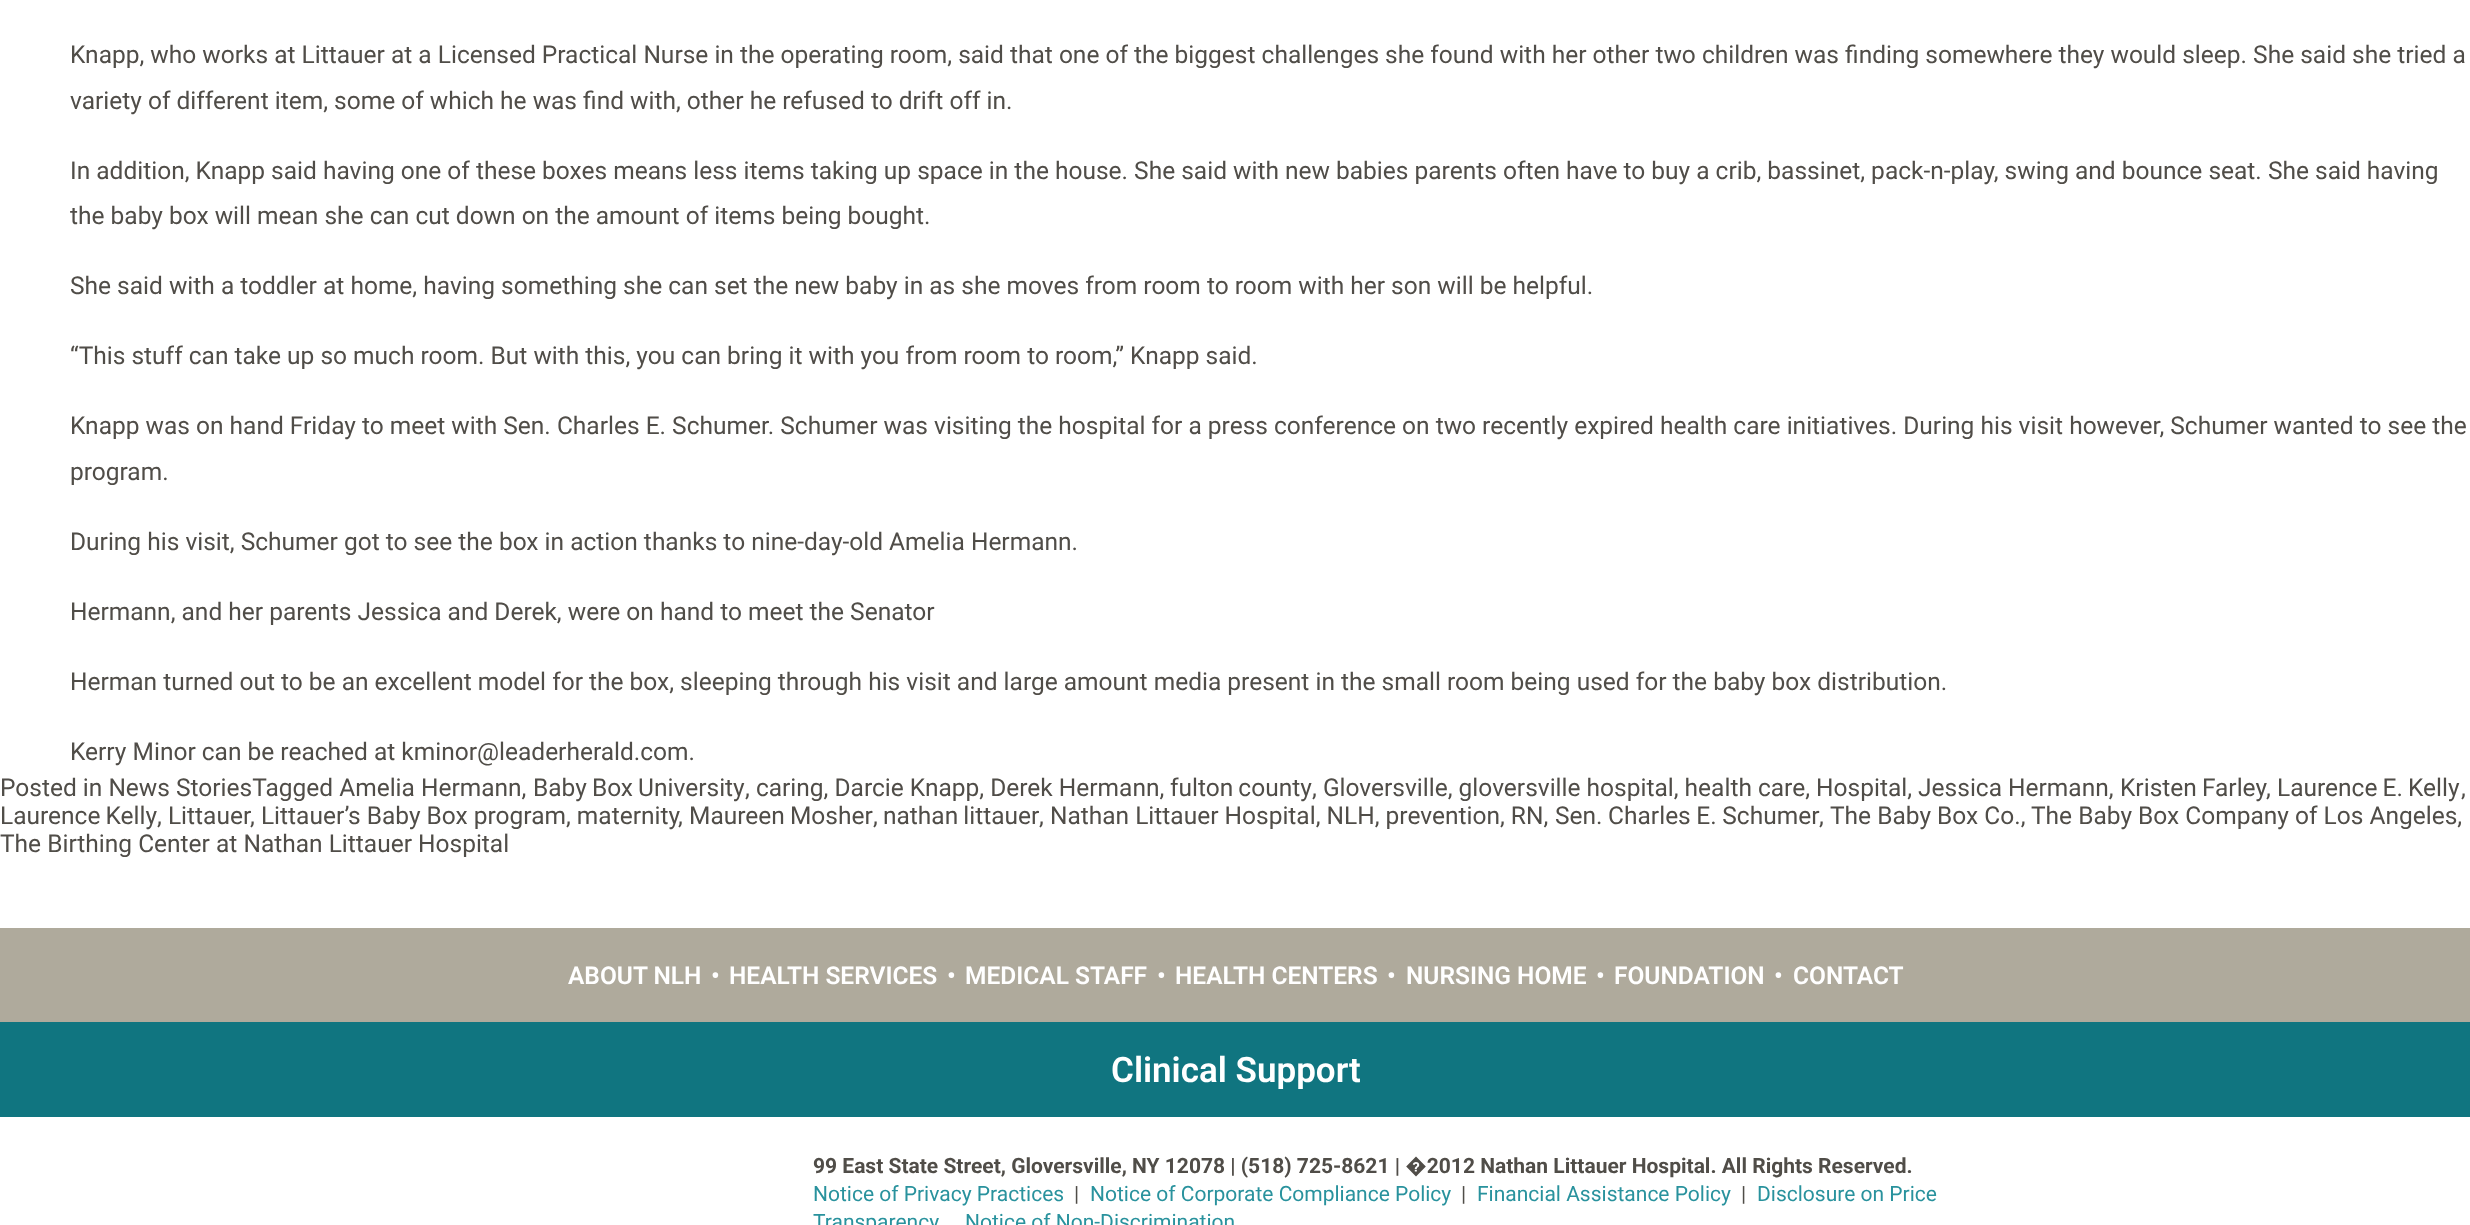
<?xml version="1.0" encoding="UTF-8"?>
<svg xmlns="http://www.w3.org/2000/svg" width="2470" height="1225">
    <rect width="100%" height="100%" fill="#FFFFFF"/>
    <text font-family="Roboto" font-size="24.5" fill="#504D48">
        <tspan x="70" y="63">Knapp, who works at Littauer at a Licensed Practical Nurse in the operating room, said that one of the biggest challenges she found with her other two children was finding somewhere they would sleep. She said she tried a</tspan>
        <tspan x="70" y="109">variety of different item, some of which he was find with, other he refused to drift off in.</tspan>
    </text>
    <text font-family="Roboto" font-size="24.5" fill="#504D48">
        <tspan x="70" y="179">In addition, Knapp said having one of these boxes means less items taking up space in the house. She said with new babies parents often have to buy a crib, bassinet, pack-n-play, swing and bounce seat. She said having</tspan>
        <tspan x="70" y="224">the baby box will mean she can cut down on the amount of items being bought.</tspan>
    </text>
    <text x="70" y="294" font-family="Roboto" font-size="24.5" fill="#504D48">She said with a toddler at home, having something she can set the new baby in as she moves from room to room with her son will be helpful.</text>
    <text x="70" y="364" font-family="Roboto" font-size="24.5" fill="#504D48">“This stuff can take up so much room. But with this, you can bring it with you from room to room,” Knapp said.</text>
    <text font-family="Roboto" font-size="24.5" fill="#504D48">
        <tspan x="70" y="434">Knapp was on hand Friday to meet with Sen. Charles E. Schumer. Schumer was visiting the hospital for a press conference on two recently expired health care initiatives. During his visit however, Schumer wanted to see the</tspan>
        <tspan x="70" y="480">program.</tspan>
    </text>
    <text x="70" y="550" font-family="Roboto" font-size="24.5" fill="#504D48">During his visit, Schumer got to see the box in action thanks to nine-day-old Amelia Hermann.</text>
    <text x="70" y="620" font-family="Roboto" font-size="24.5" fill="#504D48">Hermann, and her parents Jessica and Derek, were on hand to meet the Senator</text>
    <text x="70" y="690" font-family="Roboto" font-size="24.5" fill="#504D48">Herman turned out to be an excellent model for the box, sleeping through his visit and large amount media present in the small room being used for the baby box distribution.</text>
    <text x="70" y="760" font-family="Roboto" font-size="24.5" fill="#504D48">Kerry Minor can be reached at kminor@leaderherald.com.</text>
    <text x="0" y="796" font-family="Roboto" font-size="24.5" fill="#504D48">Posted in News StoriesTagged Amelia Hermann,</text>
    <text x="533" y="796" word-spacing="-1" font-family="Roboto" font-size="24.5" fill="#504D48">Baby Box University</text>
    <text x="745" y="796" font-family="Roboto" font-size="24.5" fill="#504D48">, caring, Darcie Knapp, Derek Hermann,</text>
    <text x="1170" y="796" word-spacing="-1" font-family="Roboto" font-size="24.5" fill="#504D48">fulton county</text>
    <text x="1312" y="796" font-family="Roboto" font-size="24.5" fill="#504D48">, Gloversville, gloversville hospital, health care, Hospital, Jessica Hermann,</text>
    <text x="2120" y="796" word-spacing="-1" font-family="Roboto" font-size="24.5" fill="#504D48">Kristen Farley</text>
    <text x="2266" y="796" font-family="Roboto" font-size="24.5" fill="#504D48">,</text>
    <text x="2277" y="796" word-spacing="-1" font-family="Roboto" font-size="24.5" fill="#504D48">Laurence E. Kelly</text>
    <text x="2461" y="796" font-family="Roboto" font-size="24.5" fill="#504D48">,</text>
    <text x="0" y="824" word-spacing="-1" font-family="Roboto" font-size="24.5" fill="#504D48">Laurence Kelly</text>
    <text x="157" y="824" font-family="Roboto" font-size="24.5" fill="#504D48">, Littauer</text>
    <text x="250" y="824" font-family="Roboto" font-size="24.5" fill="#504D48">, Littauer’s Baby Box program, maternity</text>
    <text x="678" y="824" font-family="Roboto" font-size="24.5" fill="#504D48">,</text>
    <text x="689" y="824" word-spacing="-1" font-family="Roboto" font-size="24.5" fill="#504D48">Maureen Mosher</text>
    <text x="873" y="824" font-family="Roboto" font-size="24.5" fill="#504D48">,</text>
    <text x="883" y="824" word-spacing="-1" font-family="Roboto" font-size="24.5" fill="#504D48">nathan littauer</text>
    <text x="1039" y="824" font-family="Roboto" font-size="24.5" fill="#504D48">, Nathan Littauer Hospital, NLH, prevention, RN,</text>
    <text x="1555" y="824" word-spacing="-0.5" font-family="Roboto" font-size="24.5" fill="#504D48">Sen. Charles E. Schumer</text>
    <text x="1819" y="824" font-family="Roboto" font-size="24.5" fill="#504D48">,</text>
    <text x="1830" y="824" font-family="Roboto" font-size="24.5" fill="#504D48">The Baby Box Co.,</text>
    <text x="2031" y="824" font-family="Roboto" font-size="24.5" fill="#504D48">The Baby Box Company of Los Angeles,</text>
    <text x="0" y="852" font-family="Roboto" font-size="24.5" fill="#504D48">The Birthing Center at Nathan Littauer Hospital</text>
    <rect x="0" y="928" width="2470" height="94" fill="#AFAA9C"/>
    <text x="568" y="984" font-family="Roboto" font-size="24.5" font-weight="600" fill="#FFFFFF">ABOUT NLH</text>
    <text x="711" y="984" font-family="Roboto" font-size="24.5" font-weight="600" fill="#FFFFFF">•</text>
    <text x="729" y="984" font-family="Roboto" font-size="24.5" font-weight="600" fill="#FFFFFF">HEALTH SERVICES</text>
    <text x="947" y="984" font-family="Roboto" font-size="24.5" font-weight="600" fill="#FFFFFF">•</text>
    <text x="965" y="984" font-family="Roboto" font-size="24.5" font-weight="600" fill="#FFFFFF">MEDICAL STAFF</text>
    <text x="1157" y="984" font-family="Roboto" font-size="24.5" font-weight="600" fill="#FFFFFF">•</text>
    <text x="1175" y="984" font-family="Roboto" font-size="24.5" font-weight="600" fill="#FFFFFF">HEALTH CENTERS</text>
    <text x="1387" y="984" font-family="Roboto" font-size="24.5" font-weight="600" fill="#FFFFFF">•</text>
    <text x="1406" y="984" font-family="Roboto" font-size="24.5" font-weight="600" fill="#FFFFFF">NURSING HOME</text>
    <text x="1596" y="984" font-family="Roboto" font-size="24.5" font-weight="600" fill="#FFFFFF">•</text>
    <text x="1614" y="984" font-family="Roboto" font-size="24.5" font-weight="600" fill="#FFFFFF">FOUNDATION</text>
    <text x="1774" y="984" font-family="Roboto" font-size="24.5" font-weight="600" fill="#FFFFFF">•</text>
    <text x="1793" y="984" font-family="Roboto" font-size="24.5" font-weight="600" fill="#FFFFFF">CONTACT</text>
    <rect x="0" y="1022" width="2470" height="95" fill="#107580"/>
    <text x="1111" y="1082" font-family="Roboto" font-size="35" font-weight="600" fill="#FFFFFF">Clinical Support</text>
    <text x="813" y="1173" font-family="Roboto" font-size="21" font-weight="700" fill="#504D48">99 East State Street, Gloversville, NY 12078 | (518) 725-8621 | �2012 Nathan Littauer Hospital. All Rights Reserved.</text>
    <text x="813" y="1201" font-family="Roboto" font-size="21" fill="#29929D">Notice of Privacy Practices</text>
    <text x="1074" y="1201" font-family="Roboto" font-size="21" fill="#504D48">|</text>
    <text x="1090" y="1201" font-family="Roboto" font-size="21" fill="#29929D">Notice of Corporate Compliance Policy</text>
    <text x="1461" y="1201" font-family="Roboto" font-size="21" fill="#504D48">|</text>
    <text x="1477" y="1201" font-family="Roboto" font-size="21" fill="#29929D">Financial Assistance Policy</text>
    <text x="1741" y="1201" font-family="Roboto" font-size="21" fill="#504D48">|</text>
    <text x="1757" y="1201" font-family="Roboto" font-size="21" fill="#29929D">Disclosure on Price</text>
    <text x="813" y="1229" font-family="Roboto" font-size="21" fill="#29929D">Transparency</text>
    <text x="965" y="1229" font-family="Roboto" font-size="21" fill="#29929D">Notice of Non-Discrimination</text>
</svg>
